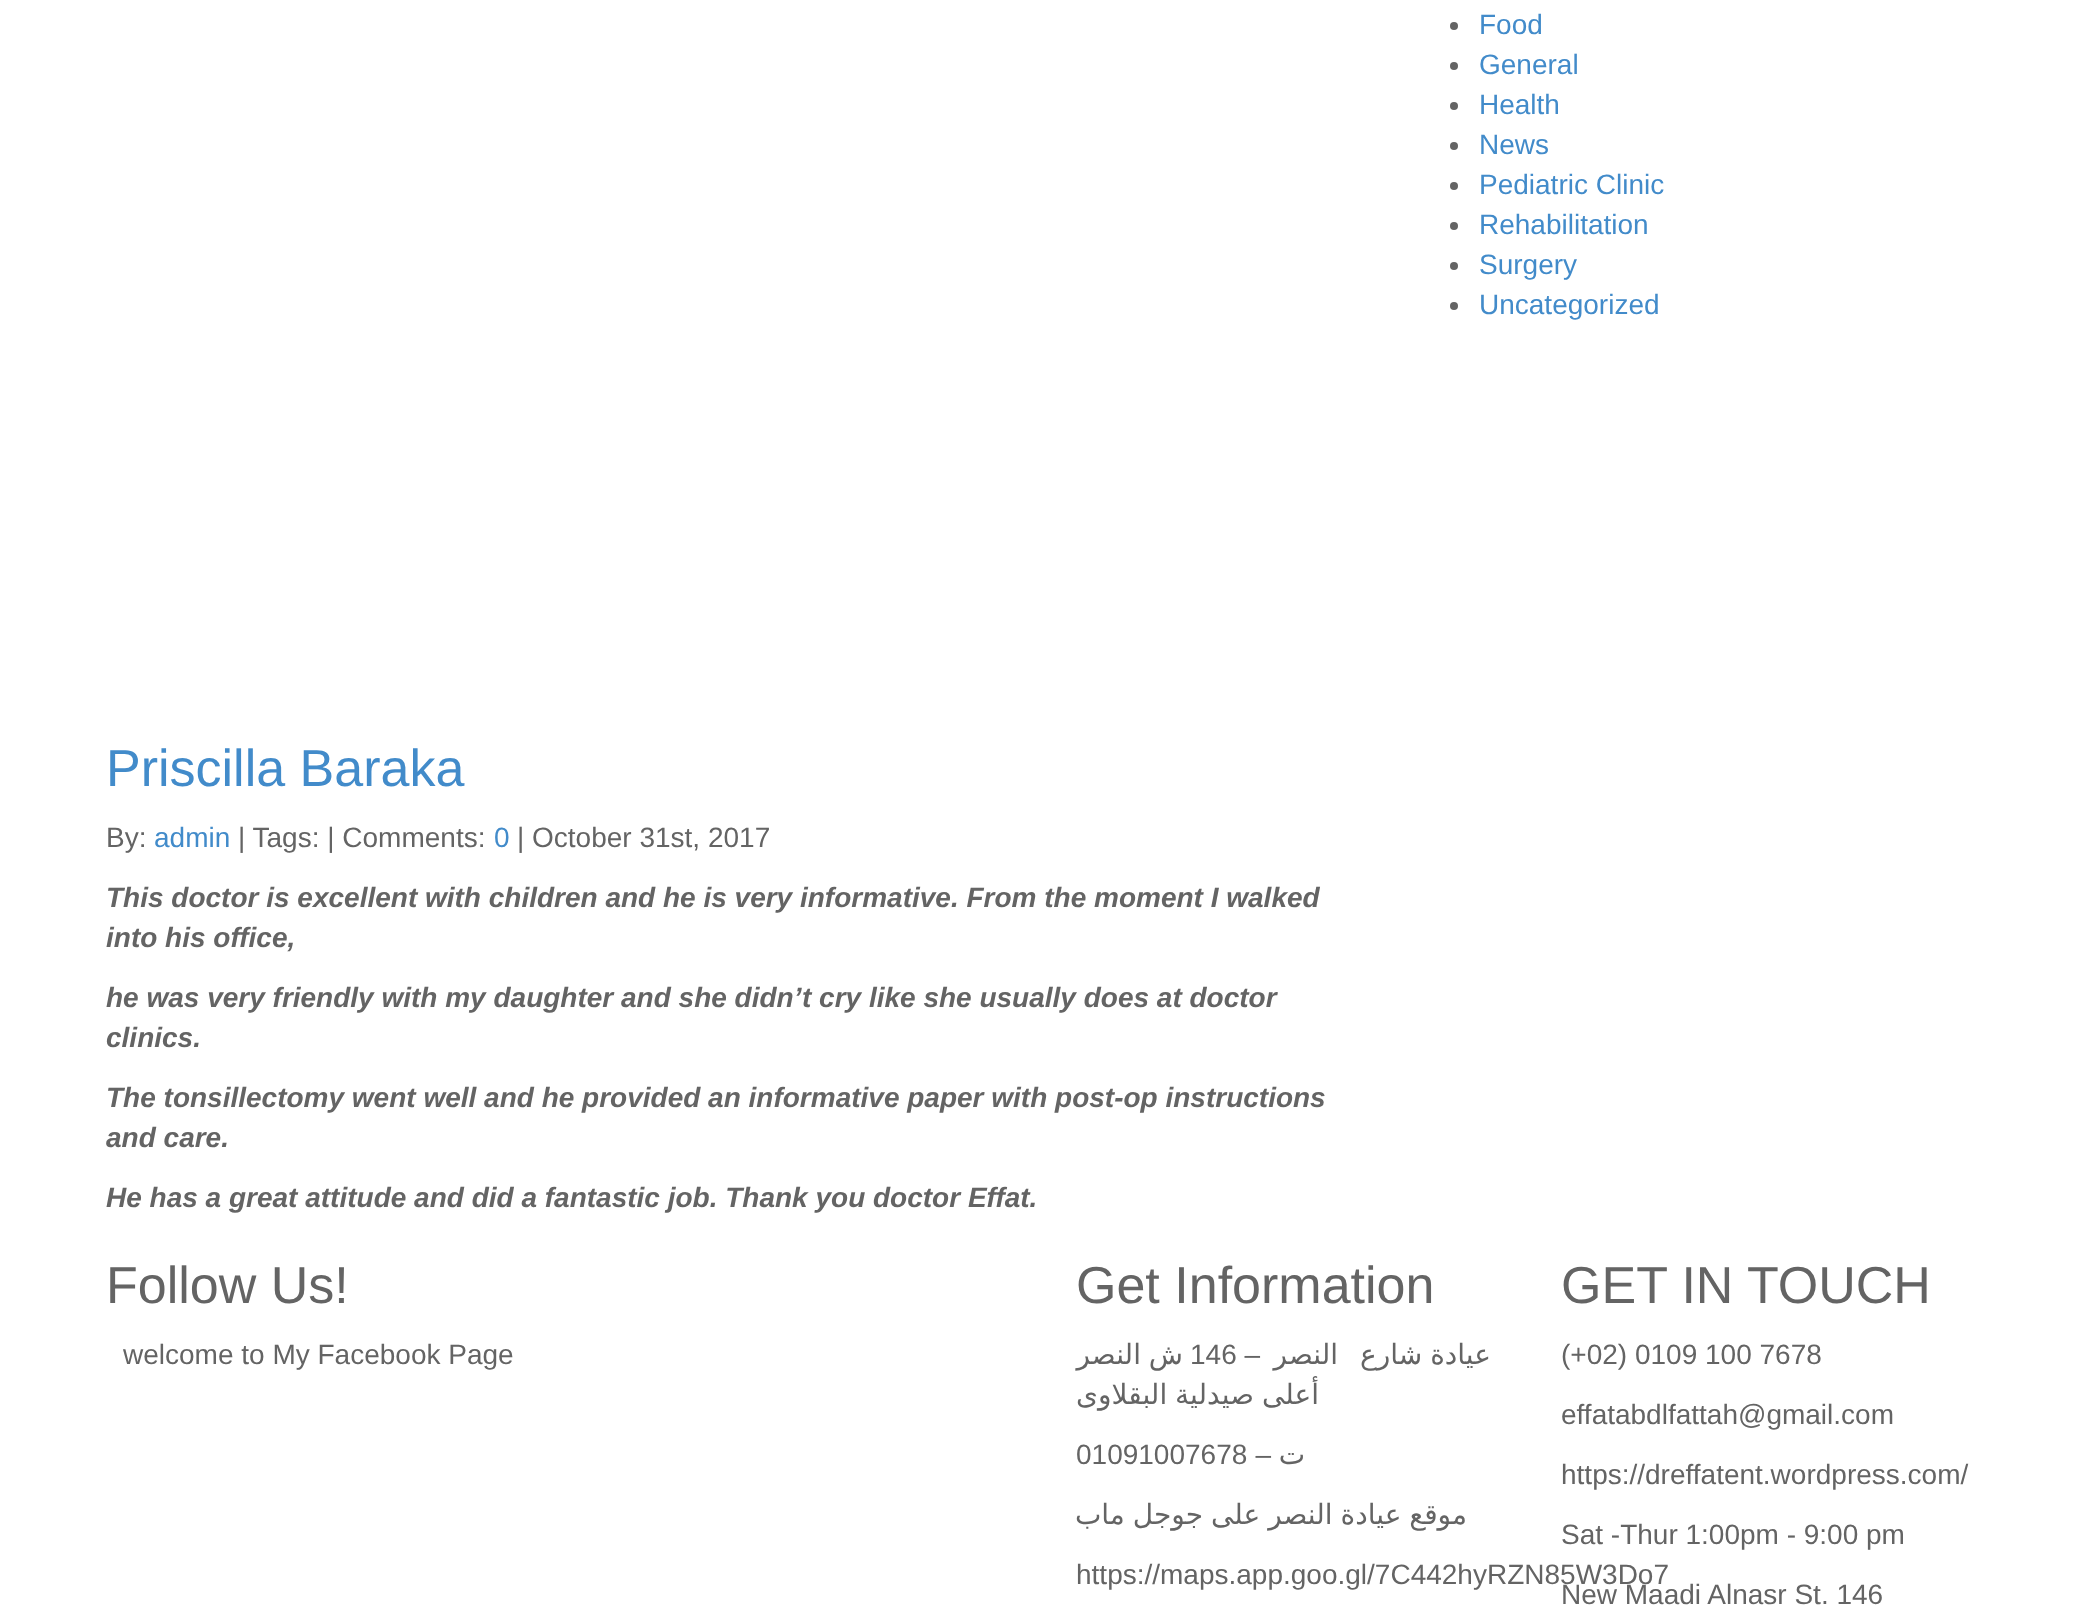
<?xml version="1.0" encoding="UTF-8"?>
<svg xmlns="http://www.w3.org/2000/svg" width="2091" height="1624">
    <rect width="100%" height="100%" fill="#FFFFFF"/>
    <circle cx="1454" cy="26" r="4" fill="#646464"/>
    <text x="1479" y="34" font-family="Liberation Sans" font-size="28" fill="#428BCA">Food</text>
    <circle cx="1454" cy="66" r="4" fill="#646464"/>
    <text x="1479" y="74" font-family="Liberation Sans" font-size="28" fill="#428BCA">General</text>
    <circle cx="1454" cy="106" r="4" fill="#646464"/>
    <text x="1479" y="114" font-family="Liberation Sans" font-size="28" fill="#428BCA">Health</text>
    <circle cx="1454" cy="146" r="4" fill="#646464"/>
    <text x="1479" y="154" font-family="Liberation Sans" font-size="28" fill="#428BCA">News</text>
    <circle cx="1454" cy="186" r="4" fill="#646464"/>
    <text x="1479" y="194" font-family="Liberation Sans" font-size="28" fill="#428BCA">Pediatric Clinic</text>
    <circle cx="1454" cy="226" r="4" fill="#646464"/>
    <text x="1479" y="234" font-family="Liberation Sans" font-size="28" fill="#428BCA">Rehabilitation</text>
    <circle cx="1454" cy="266" r="4" fill="#646464"/>
    <text x="1479" y="274" font-family="Liberation Sans" font-size="28" fill="#428BCA">Surgery</text>
    <circle cx="1454" cy="306" r="4" fill="#646464"/>
    <text x="1479" y="314" font-family="Liberation Sans" font-size="28" fill="#428BCA">Uncategorized</text>
    <text x="106" y="786" font-family="Liberation Sans" font-size="52" fill="#428BCA">Priscilla Baraka</text>
    <text x="106" y="847" font-family="Liberation Sans" font-size="28" fill="#646464">By:</text>
    <text x="154" y="847" font-family="Liberation Sans" font-size="28" fill="#428BCA">admin</text>
    <text x="238" y="847" font-family="Liberation Sans" font-size="28" fill="#646464">| Tags: | Comments:</text>
    <text x="494" y="847" font-family="Liberation Sans" font-size="28" fill="#428BCA">0</text>
    <text x="517" y="847" font-family="Liberation Sans" font-size="28" fill="#646464">| October 31st, 2017</text>
    <text font-family="Liberation Sans" font-size="28" font-weight="700" font-style="italic" fill="#646464">
        <tspan x="106" y="907">This doctor is excellent with children and he is very informative. From the moment I walked</tspan>
        <tspan x="106" y="947">into his office,</tspan>
    </text>
    <text font-family="Liberation Sans" font-size="28" font-weight="700" font-style="italic" fill="#646464">
        <tspan x="106" y="1007">he was very friendly with my daughter and she didn’t cry like she usually does at doctor</tspan>
        <tspan x="106" y="1047">clinics.</tspan>
    </text>
    <text font-family="Liberation Sans" font-size="28" font-weight="700" font-style="italic" fill="#646464">
        <tspan x="106" y="1107">The tonsillectomy went well and he provided an informative paper with post-op instructions</tspan>
        <tspan x="106" y="1147">and care.</tspan>
    </text>
    <text x="106" y="1207" font-family="Liberation Sans" font-size="28" font-weight="700" font-style="italic" fill="#646464">He has a great attitude and did a fantastic job. Thank you doctor Effat.</text>
    <text x="106" y="1303" font-family="Liberation Sans" font-size="52" fill="#646464">Follow Us!</text>
    <text x="123" y="1364" font-family="Liberation Sans" font-size="28" fill="#646464">welcome to My Facebook Page</text>
    <text x="1076" y="1303" font-family="Liberation Sans" font-size="52" fill="#646464">Get Information</text>
    <text x="1183" y="1364" word-spacing="-1" font-family="DejaVu Sans" font-size="28" direction="rtl" fill="#646464">ش النصر</text>
    <text x="1190" y="1364" font-family="Liberation Sans" font-size="28" fill="#646464">146</text>
    <text x="1260" y="1364" font-family="Liberation Sans" font-size="28" direction="rtl" fill="#646464">–</text>
    <text x="1338" y="1364" font-family="DejaVu Sans" font-size="28" direction="rtl" fill="#646464">النصر</text>
    <text x="1491" y="1364" word-spacing="-1" font-family="DejaVu Sans" font-size="28" direction="rtl" fill="#646464">عيادة شارع</text>
    <text x="1319" y="1404" word-spacing="-1" font-family="DejaVu Sans" font-size="28" direction="rtl" fill="#646464">أعلى صيدلية البقلاوى</text>
    <text x="1076" y="1464" font-family="Liberation Sans" font-size="28" fill="#646464">01091007678</text>
    <text x="1271" y="1464" font-family="Liberation Sans" font-size="28" direction="rtl" fill="#646464">–</text>
    <text x="1305" y="1464" font-family="DejaVu Sans" font-size="28" direction="rtl" fill="#646464">ت</text>
    <text x="1467" y="1524" word-spacing="-1" font-family="DejaVu Sans" font-size="28" direction="rtl" fill="#646464">موقع عيادة النصر على جوجل ماب</text>
    <text x="1076" y="1584" font-family="Liberation Sans" font-size="28" fill="#646464">https://maps.app.goo.gl/7C442hyRZN85W3Do7</text>
    <text x="1561" y="1303" font-family="Liberation Sans" font-size="52" fill="#646464">GET IN TOUCH</text>
    <text x="1561" y="1364" font-family="Liberation Sans" font-size="28" fill="#646464">(+02) 0109 100 7678</text>
    <text x="1561" y="1424" font-family="Liberation Sans" font-size="28" fill="#646464">effatabdlfattah@gmail.com</text>
    <text x="1561" y="1484" font-family="Liberation Sans" font-size="28" fill="#646464">https://dreffatent.wordpress.com/</text>
    <text x="1561" y="1544" font-family="Liberation Sans" font-size="28" fill="#646464">Sat -Thur 1:00pm - 9:00 pm</text>
    <text x="1561" y="1604" font-family="Liberation Sans" font-size="28" fill="#646464">New Maadi Alnasr St. 146</text>
</svg>
